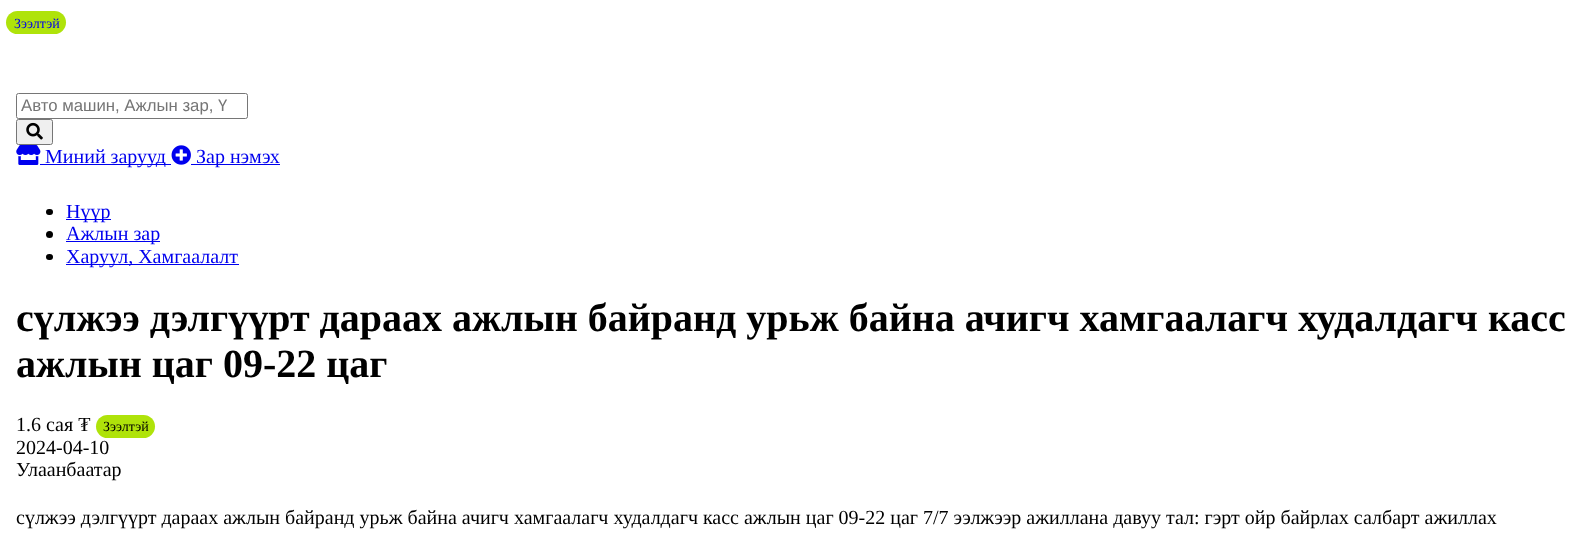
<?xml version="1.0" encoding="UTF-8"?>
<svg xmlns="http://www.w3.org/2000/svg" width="1595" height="534">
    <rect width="100%" height="100%" fill="#FFFFFF"/>
    <rect x="6" y="11" width="60" height="23" rx="11.5" fill="#AFE30A"/>
    <text x="14" y="28" font-family="Liberation Serif" font-size="14" fill="#0000EE">Зээлтэй</text>
    <rect x="46" y="209" width="7" height="6" rx="3" fill="#000000"/>
    <rect x="66" y="219" width="45" height="1" fill="#0000EE"/>
    <text x="66" y="218" font-family="Liberation Serif" font-size="20" fill="#0000EE">Нүүр</text>
    <circle cx="49.5" cy="234.5" r="3.5" fill="#000000"/>
    <rect x="66" y="241" width="94" height="1" fill="#0000EE"/>
    <text x="66" y="240" font-family="Liberation Serif" font-size="20" fill="#0000EE">Ажлын зар</text>
    <rect x="46" y="254" width="7" height="6" rx="3" fill="#000000"/>
    <rect x="66" y="264" width="173" height="1" fill="#0000EE"/>
    <text x="66" y="263" font-family="Liberation Serif" font-size="20" fill="#0000EE">Харуул, Хамгаалалт</text>
    <text font-family="Liberation Serif" font-size="40" font-weight="700" fill="#000000">
        <tspan x="16" y="331">сүлжээ дэлгүүрт дараах ажлын байранд урьж байна ачигч хамгаалагч худалдагч касс</tspan>
        <tspan x="16" y="377">ажлын цаг 09-22 цаг</tspan>
    </text>
    <text x="16" y="431" font-family="Liberation Serif" font-size="20" fill="#000000">1.6 сая ₮</text>
    <rect x="96" y="415" width="59" height="23" rx="11.5" fill="#AFE30A"/>
    <text x="103" y="431" font-family="Liberation Serif" font-size="14" fill="#000000">Зээлтэй</text>
    <text font-family="Liberation Serif" font-size="20" fill="#000000">
        <tspan x="16" y="454">2024-04-10</tspan>
        <tspan x="16" y="476">Улаанбаатар</tspan>
    </text>
    <text x="16" y="524" font-family="Liberation Serif" font-size="20" fill="#000000">сүлжээ дэлгүүрт дараах ажлын байранд урьж байна ачигч хамгаалагч худалдагч касс ажлын цаг 09-22 цаг 7/7 ээлжээр ажиллана давуу тал: гэрт ойр байрлах салбарт ажиллах</text>
    <rect x="16.5" y="93.5" width="231" height="25" rx="2" fill="none" stroke="#767676"/>
    <text x="21" y="111" font-family="Liberation Sans" font-size="16.75" fill="#757575">Авто машин, Ажлын зар, Ү</text>
    <rect x="16.5" y="119.5" width="36" height="25" rx="2" fill="#EFEFEF" stroke="#767676"/>
    <image x="26" y="122" width="17" height="18" href="img_01.png"/>
    <image x="16" y="145" width="25" height="20" href="img_02.png"/>
    <rect x="40" y="164" width="131" height="1" fill="#0000EE"/>
    <text x="45" y="163" font-family="Liberation Serif" font-size="20" fill="#0000EE">Миний зарууд</text>
    <image x="171" y="145" width="20" height="20" href="img_03.png"/>
    <rect x="191" y="164" width="89" height="1" fill="#0000EE"/>
    <text x="196" y="163" font-family="Liberation Serif" font-size="20" fill="#0000EE">Зар нэмэх</text>
</svg>
